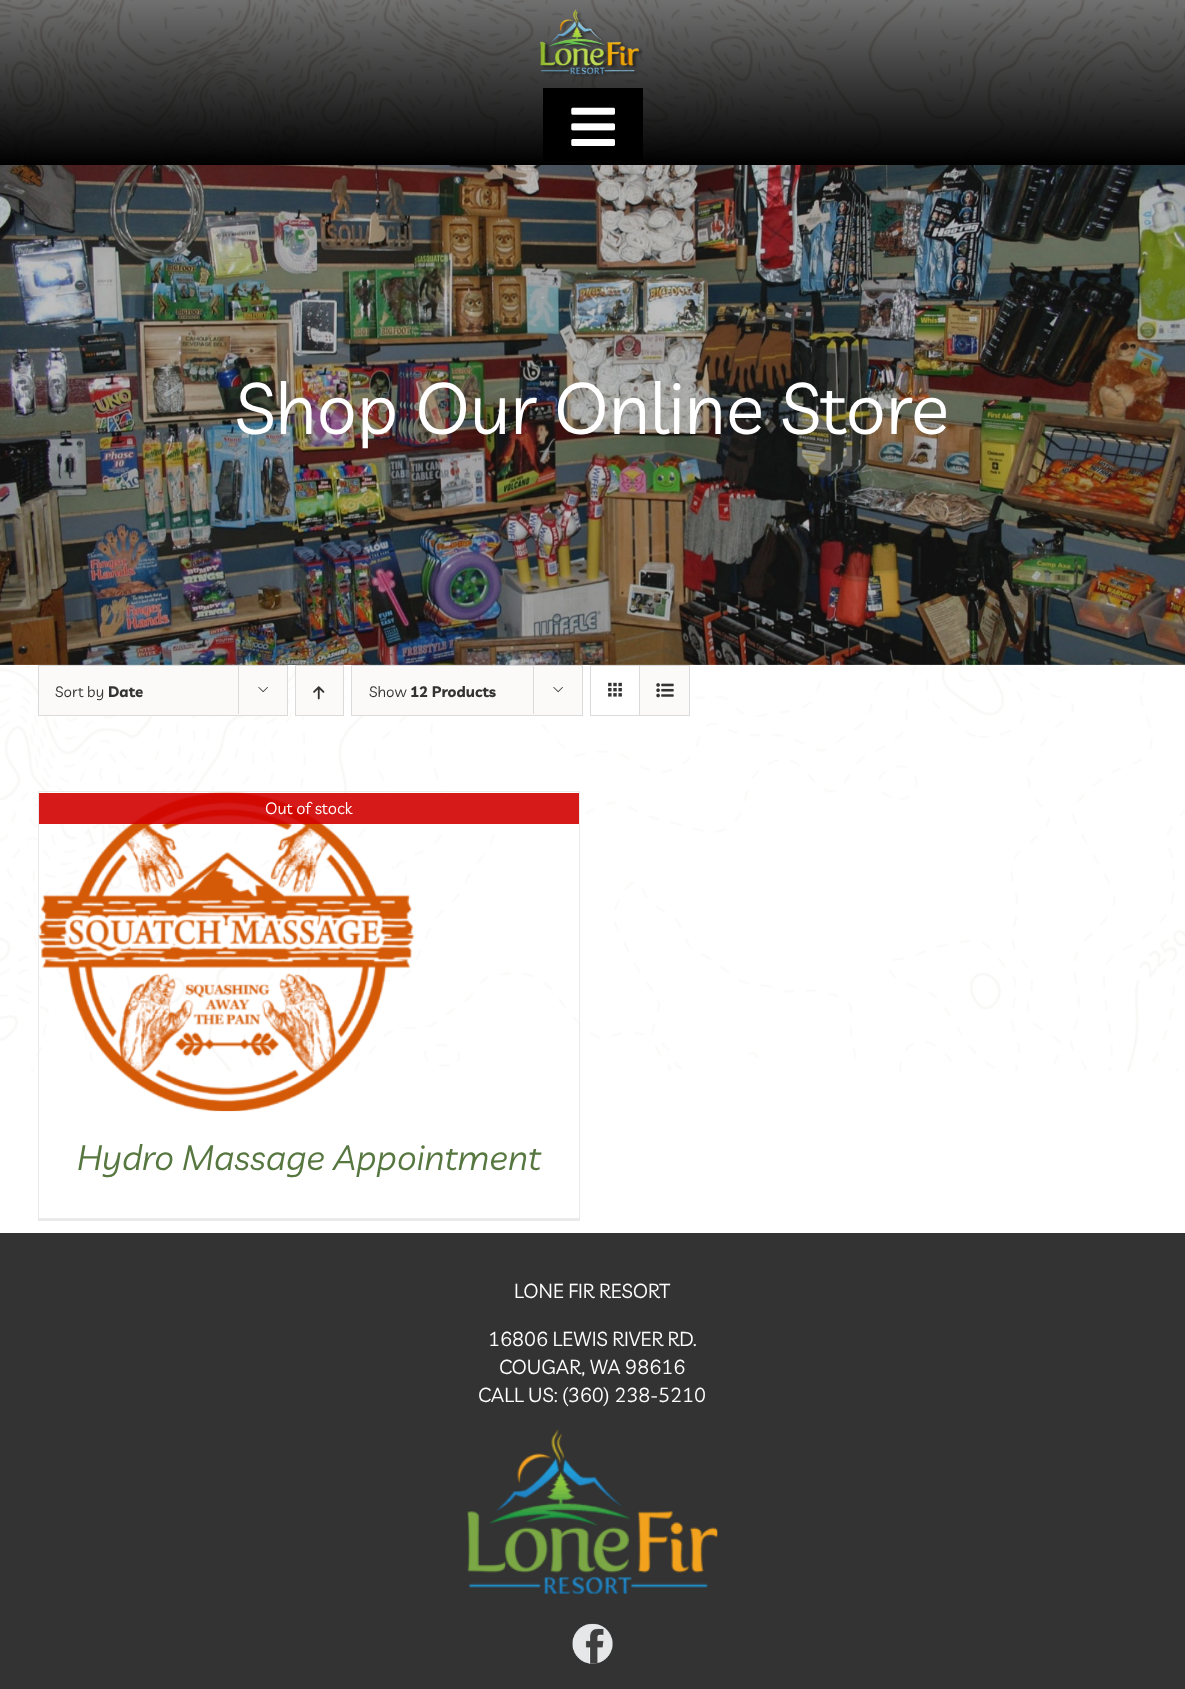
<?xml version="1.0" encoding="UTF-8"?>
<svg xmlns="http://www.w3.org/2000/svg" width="1185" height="1689">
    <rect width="100%" height="100%" fill="#FFFFFF"/>
    <image x="0" y="0" width="1185" height="1072" href="img_01.png"/>
    <image x="540" y="9" width="103" height="68" href="img_02.png"/>
    <rect x="543" y="88" width="100" height="73" fill="#000000"/>
    <image x="571" y="107" width="44" height="39" href="img_03.png"/>
    <image x="0" y="165" width="1185" height="500" href="img_04.png"/>
    <text x="235" y="434" font-family="Livvic" font-size="71.75" fill="#FFFFFF">Shop Our Online Store</text>
    <rect x="0" y="665" width="1185" height="407" fill="#FFFFFF" fill-opacity="0.8"/>
    <rect x="38.5" y="665.5" width="249" height="50" fill="#FBFAF9" stroke="#DBDBDB"/>
    <text x="55" y="697" font-family="Livvic" font-size="15" fill="#333333">Sort by</text>
    <text x="108" y="697" font-family="Livvic" font-size="15" font-weight="700" fill="#333333">Date</text>
    <rect x="238" y="665" width="1" height="49" fill="#DBDBDB"/>
    <image x="258" y="687" width="10" height="6" href="img_05.png"/>
    <rect x="295.5" y="665.5" width="48" height="50" fill="#FBFAF9" stroke="#DBDBDB"/>
    <image x="313" y="686" width="12" height="14" href="img_06.png"/>
    <rect x="351.5" y="665.5" width="231" height="50" fill="#FBFAF9" stroke="#DBDBDB"/>
    <text x="369" y="697" font-family="Livvic" font-size="15" fill="#333333">Show</text>
    <text x="410" y="697" font-family="Livvic" font-size="15" font-weight="700" fill="#333333">12 Products</text>
    <rect x="533" y="665" width="1" height="49" fill="#DBDBDB"/>
    <image x="553" y="687" width="10" height="6" href="img_05.png"/>
    <rect x="590.5" y="665.5" width="99" height="50" fill="none" stroke="#DBDBDB"/>
    <rect x="591" y="666" width="48" height="16" fill="#FFFFFF"/>
    <rect x="639" y="666" width="1" height="49" fill="#DBDBDB"/>
    <image x="608" y="682" width="14" height="15" href="img_07.png"/>
    <rect x="640" y="666" width="49" height="49" fill="#FBFAF9"/>
    <image x="656" y="683" width="18" height="15" href="img_08.png"/>
    <rect x="38" y="791" width="542" height="1" fill="#EBEAEA"/>
    <rect x="579" y="791" width="1" height="429" fill="#EBEAEA"/>
    <rect x="38" y="1218" width="542" height="3" fill="#EBEAEA"/>
    <rect x="38" y="791" width="1" height="429" fill="#EBEAEA"/>
    <image x="38" y="792" width="376" height="320" href="img_09.png"/>
    <rect x="39" y="793" width="540" height="31" fill="#D20000" fill-opacity="0.9"/>
    <text x="265" y="814" font-family="Livvic" font-size="16.25" fill="#FFFFFF">Out of stock</text>
    <text x="77" y="1170" font-family="Livvic" font-size="35" font-style="italic" fill="#577740">Hydro Massage Appointment</text>
    <rect x="0" y="1233" width="1185" height="456" fill="#333333"/>
    <text x="514" y="1298" font-family="Livvic" font-size="20" fill="#FFFFFF">LONE FIR RESORT</text>
    <text x="488" y="1346" font-family="Livvic" font-size="20" fill="#FFFFFF">16806 LEWIS RIVER RD.</text>
    <text x="499" y="1374" font-family="Livvic" font-size="20" fill="#FFFFFF">COUGAR, WA 98616</text>
    <text x="478" y="1402" font-family="Livvic" font-size="20" fill="#FFFFFF">CALL US: (360) 238-5210</text>
    <image x="467" y="1429" width="251" height="165" href="img_10.png"/>
    <image x="572" y="1623" width="41" height="41" href="img_11.png"/>
</svg>
